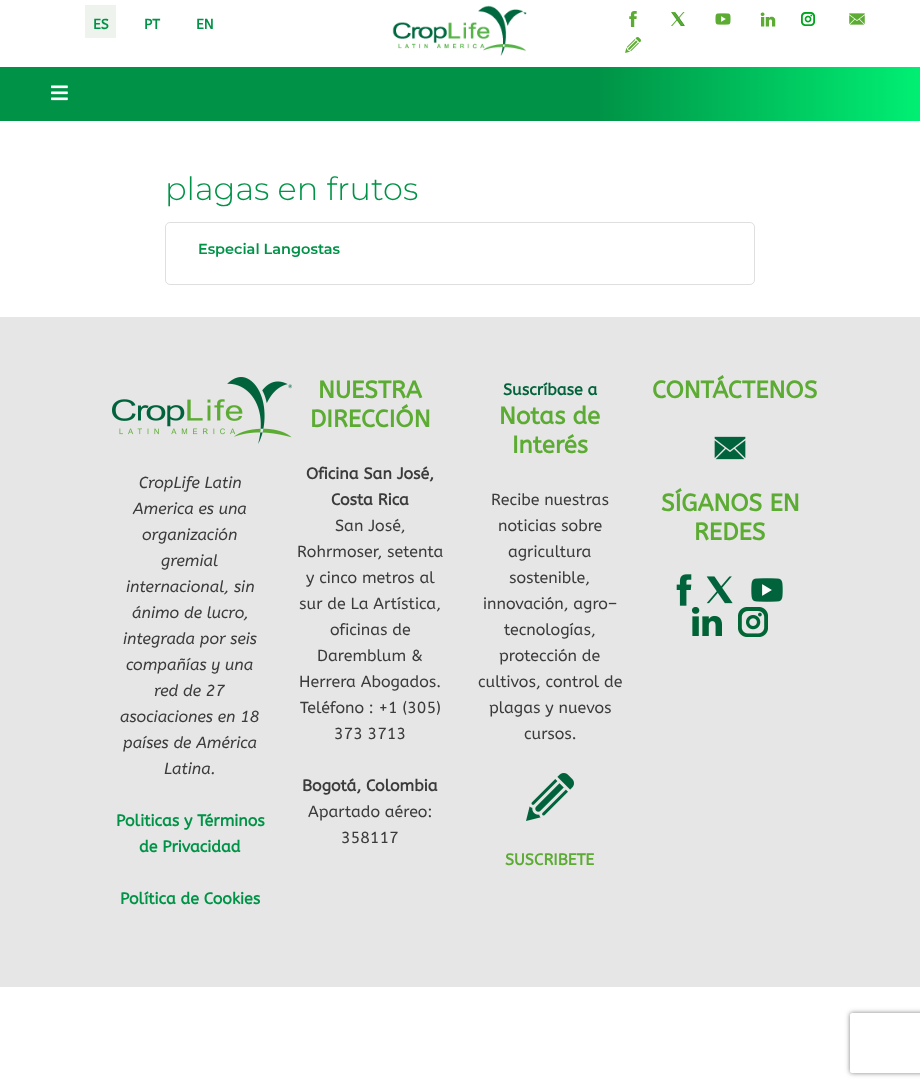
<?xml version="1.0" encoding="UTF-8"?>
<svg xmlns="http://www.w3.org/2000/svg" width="920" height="1087">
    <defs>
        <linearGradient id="g1" gradientUnits="userSpaceOnUse" x1="0" y1="94" x2="920" y2="94"><stop offset="0" stop-color="#009347"/><stop offset="0.65" stop-color="#009347"/><stop offset="1" stop-color="#00EF73"/></linearGradient>
        <clipPath id="clip1"><path d="M 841 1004 H 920 V 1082 H 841 Z M 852 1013 H 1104 C 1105 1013 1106 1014 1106 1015 V 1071 C 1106 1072 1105 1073 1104 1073 H 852 C 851 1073 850 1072 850 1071 V 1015 C 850 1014 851 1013 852 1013 Z" clip-rule="evenodd"/></clipPath>
        <filter id="blur1" x="-50%" y="-200%" width="200%" height="500%"><feGaussianBlur stdDeviation="2.5"/></filter>
    </defs>
    <rect width="100%" height="100%" fill="#FFFFFF"/>
    <rect x="85" y="5" width="31" height="33" fill="#EEF4ED"/>
    <text x="93" y="29" font-family="ABeeZee" font-size="14" font-weight="700" fill="#009347">ES</text>
    <text x="144" y="29" font-family="ABeeZee" font-size="14" font-weight="700" fill="#009347">PT</text>
    <text x="196" y="29" font-family="ABeeZee" font-size="14" font-weight="700" fill="#009347">EN</text>
    <image x="392" y="5" width="135" height="51" href="img_01.png"/>
    <image x="629" y="11" width="8" height="16" href="img_02.png"/>
    <image x="671" y="12" width="14" height="14" href="img_03.png"/>
    <image x="715" y="13" width="16" height="12" href="img_04.png"/>
    <image x="760" y="12" width="16" height="15" href="img_05.png"/>
    <image x="801" y="12" width="14" height="14" href="img_06.png"/>
    <image x="849" y="13" width="16" height="12" href="img_07.png"/>
    <image x="625" y="37" width="16" height="16" href="img_08.png"/>
    <rect x="0" y="67" width="920" height="54" fill="url(#g1)"/>
    <image x="51" y="85" width="17" height="16" href="img_09.png"/>
    <text x="165" y="200" font-family="Montserrat" font-size="32" font-weight="300" fill="#009347">plagas en frutos</text>
    <rect x="165.5" y="222.5" width="589" height="62" rx="4.5" fill="none" stroke="#DFDFDF"/>
    <text x="198" y="254" font-family="Montserrat" font-size="14.5" font-weight="600" fill="#009347">Especial Langostas</text>
    <rect x="0" y="317" width="920" height="670" fill="#E6E6E6"/>
    <image x="112" y="377" width="180" height="67" href="img_10.png"/>
    <text x="139" y="488" font-family="ABeeZee" font-size="16" font-style="italic" fill="#3B3B3B">CropLife Latin</text>
    <text x="133" y="514" font-family="ABeeZee" font-size="16" font-style="italic" fill="#3B3B3B">America es una</text>
    <text x="142" y="540" font-family="ABeeZee" font-size="16" font-style="italic" fill="#3B3B3B">organización</text>
    <text x="161" y="566" font-family="ABeeZee" font-size="16" font-style="italic" fill="#3B3B3B">gremial</text>
    <text x="126" y="592" font-family="ABeeZee" font-size="16" font-style="italic" fill="#3B3B3B">internacional, sin</text>
    <text x="132" y="618" font-family="ABeeZee" font-size="16" font-style="italic" fill="#3B3B3B">ánimo de lucro,</text>
    <text x="123" y="644" font-family="ABeeZee" font-size="16" font-style="italic" fill="#3B3B3B">integrada por seis</text>
    <text x="126" y="670" font-family="ABeeZee" font-size="16" font-style="italic" fill="#3B3B3B">compañías y una</text>
    <text x="154" y="696" font-family="ABeeZee" font-size="16" font-style="italic" fill="#3B3B3B">red de 27</text>
    <text x="120" y="722" font-family="ABeeZee" font-size="16" font-style="italic" fill="#3B3B3B">asociaciones en 18</text>
    <text x="123" y="748" font-family="ABeeZee" font-size="16" font-style="italic" fill="#3B3B3B">países de América</text>
    <text x="164" y="774" font-family="ABeeZee" font-size="16" font-style="italic" fill="#3B3B3B">Latina.</text>
    <text x="116" y="826" font-family="ABeeZee" font-size="16" font-weight="700" fill="#009347">Politicas y Términos</text>
    <text x="139" y="852" font-family="ABeeZee" font-size="16" font-weight="700" fill="#009347">de Privacidad</text>
    <text x="120" y="904" font-family="ABeeZee" font-size="16" font-weight="700" fill="#009347">Política de Cookies</text>
    <text x="318" y="398" font-family="ABeeZee" font-size="24" font-weight="700" fill="#5CAB33">NUESTRA</text>
    <text x="310" y="427" font-family="ABeeZee" font-size="24" font-weight="700" fill="#5CAB33">DIRECCIÓN</text>
    <text x="306" y="479" font-family="ABeeZee" font-size="16" font-weight="700" fill="#3B3B3B">Oficina San José,</text>
    <text x="331" y="505" font-family="ABeeZee" font-size="16" font-weight="700" fill="#3B3B3B">Costa Rica</text>
    <text x="335" y="531" font-family="ABeeZee" font-size="16" fill="#3B3B3B">San José,</text>
    <text x="297" y="557" font-family="ABeeZee" font-size="16" fill="#3B3B3B">Rohrmoser, setenta</text>
    <text x="306" y="583" font-family="ABeeZee" font-size="16" fill="#3B3B3B">y cinco metros al</text>
    <text x="299" y="609" font-family="ABeeZee" font-size="16" fill="#3B3B3B">sur de La Artística,</text>
    <text x="330" y="635" font-family="ABeeZee" font-size="16" fill="#3B3B3B">oficinas de</text>
    <text x="317" y="661" font-family="ABeeZee" font-size="16" fill="#3B3B3B">Daremblum &amp;</text>
    <text x="299" y="687" font-family="ABeeZee" font-size="16" fill="#3B3B3B">Herrera Abogados.</text>
    <text x="300" y="713" font-family="ABeeZee" font-size="16" fill="#3B3B3B">Teléfono : +1 (305)</text>
    <text x="334" y="739" font-family="ABeeZee" font-size="16" fill="#3B3B3B">373 3713</text>
    <text x="302" y="791" font-family="ABeeZee" font-size="16" font-weight="700" fill="#3B3B3B">Bogotá, Colombia</text>
    <text x="308" y="817" font-family="ABeeZee" font-size="16" fill="#3B3B3B">Apartado aéreo:</text>
    <text x="341" y="843" font-family="ABeeZee" font-size="16" fill="#3B3B3B">358117</text>
    <text x="503" y="395" font-family="ABeeZee" font-size="16" font-weight="700" fill="#00633B">Suscríbase a</text>
    <text x="499" y="424" font-family="ABeeZee" font-size="24" font-weight="700" fill="#5CAB33">Notas de</text>
    <text x="512" y="453" font-family="ABeeZee" font-size="24" font-weight="700" fill="#5CAB33">Interés</text>
    <text x="491" y="505" font-family="ABeeZee" font-size="16" fill="#3B3B3B">Recibe nuestras</text>
    <text x="498" y="531" font-family="ABeeZee" font-size="16" fill="#3B3B3B">noticias sobre</text>
    <text x="508" y="557" font-family="ABeeZee" font-size="16" fill="#3B3B3B">agricultura</text>
    <text x="509" y="583" font-family="ABeeZee" font-size="16" fill="#3B3B3B">sostenible,</text>
    <text x="483" y="609" font-family="ABeeZee" font-size="16" fill="#3B3B3B">innovación, agro–</text>
    <text x="504" y="635" font-family="ABeeZee" font-size="16" fill="#3B3B3B">tecnologías,</text>
    <text x="499" y="661" font-family="ABeeZee" font-size="16" fill="#3B3B3B">protección de</text>
    <text x="478" y="687" font-family="ABeeZee" font-size="16" fill="#3B3B3B">cultivos, control de</text>
    <text x="489" y="713" font-family="ABeeZee" font-size="16" fill="#3B3B3B">plagas y nuevos</text>
    <text x="524" y="739" font-family="ABeeZee" font-size="16" fill="#3B3B3B">cursos.</text>
    <image x="526" y="773" width="48" height="48" href="img_11.png"/>
    <text x="505" y="865" font-family="ABeeZee" font-size="16" font-weight="700" fill="#5CAB33">SUSCRIBETE</text>
    <text x="652" y="398" font-family="ABeeZee" font-size="24" font-weight="700" fill="#5CAB33">CONTÁCTENOS</text>
    <image x="714" y="436" width="32" height="24" href="img_12.png"/>
    <text x="661" y="511" font-family="ABeeZee" font-size="24" font-weight="700" fill="#5CAB33">SÍGANOS EN</text>
    <text x="694" y="540" font-family="ABeeZee" font-size="24" font-weight="700" fill="#5CAB33">REDES</text>
    <image x="676" y="574" width="16" height="32" href="img_13.png"/>
    <image x="706" y="576" width="27" height="28" href="img_14.png"/>
    <image x="751" y="578" width="32" height="24" href="img_15.png"/>
    <image x="692" y="607" width="30" height="29" href="img_16.png"/>
    <image x="738" y="607" width="30" height="30" href="img_17.png"/>
    <g clip-path="url(#clip1)">
        <rect x="850" y="1013" width="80" height="60" rx="2" fill="#808080" filter="url(#blur1)"/>
    </g>
</svg>
